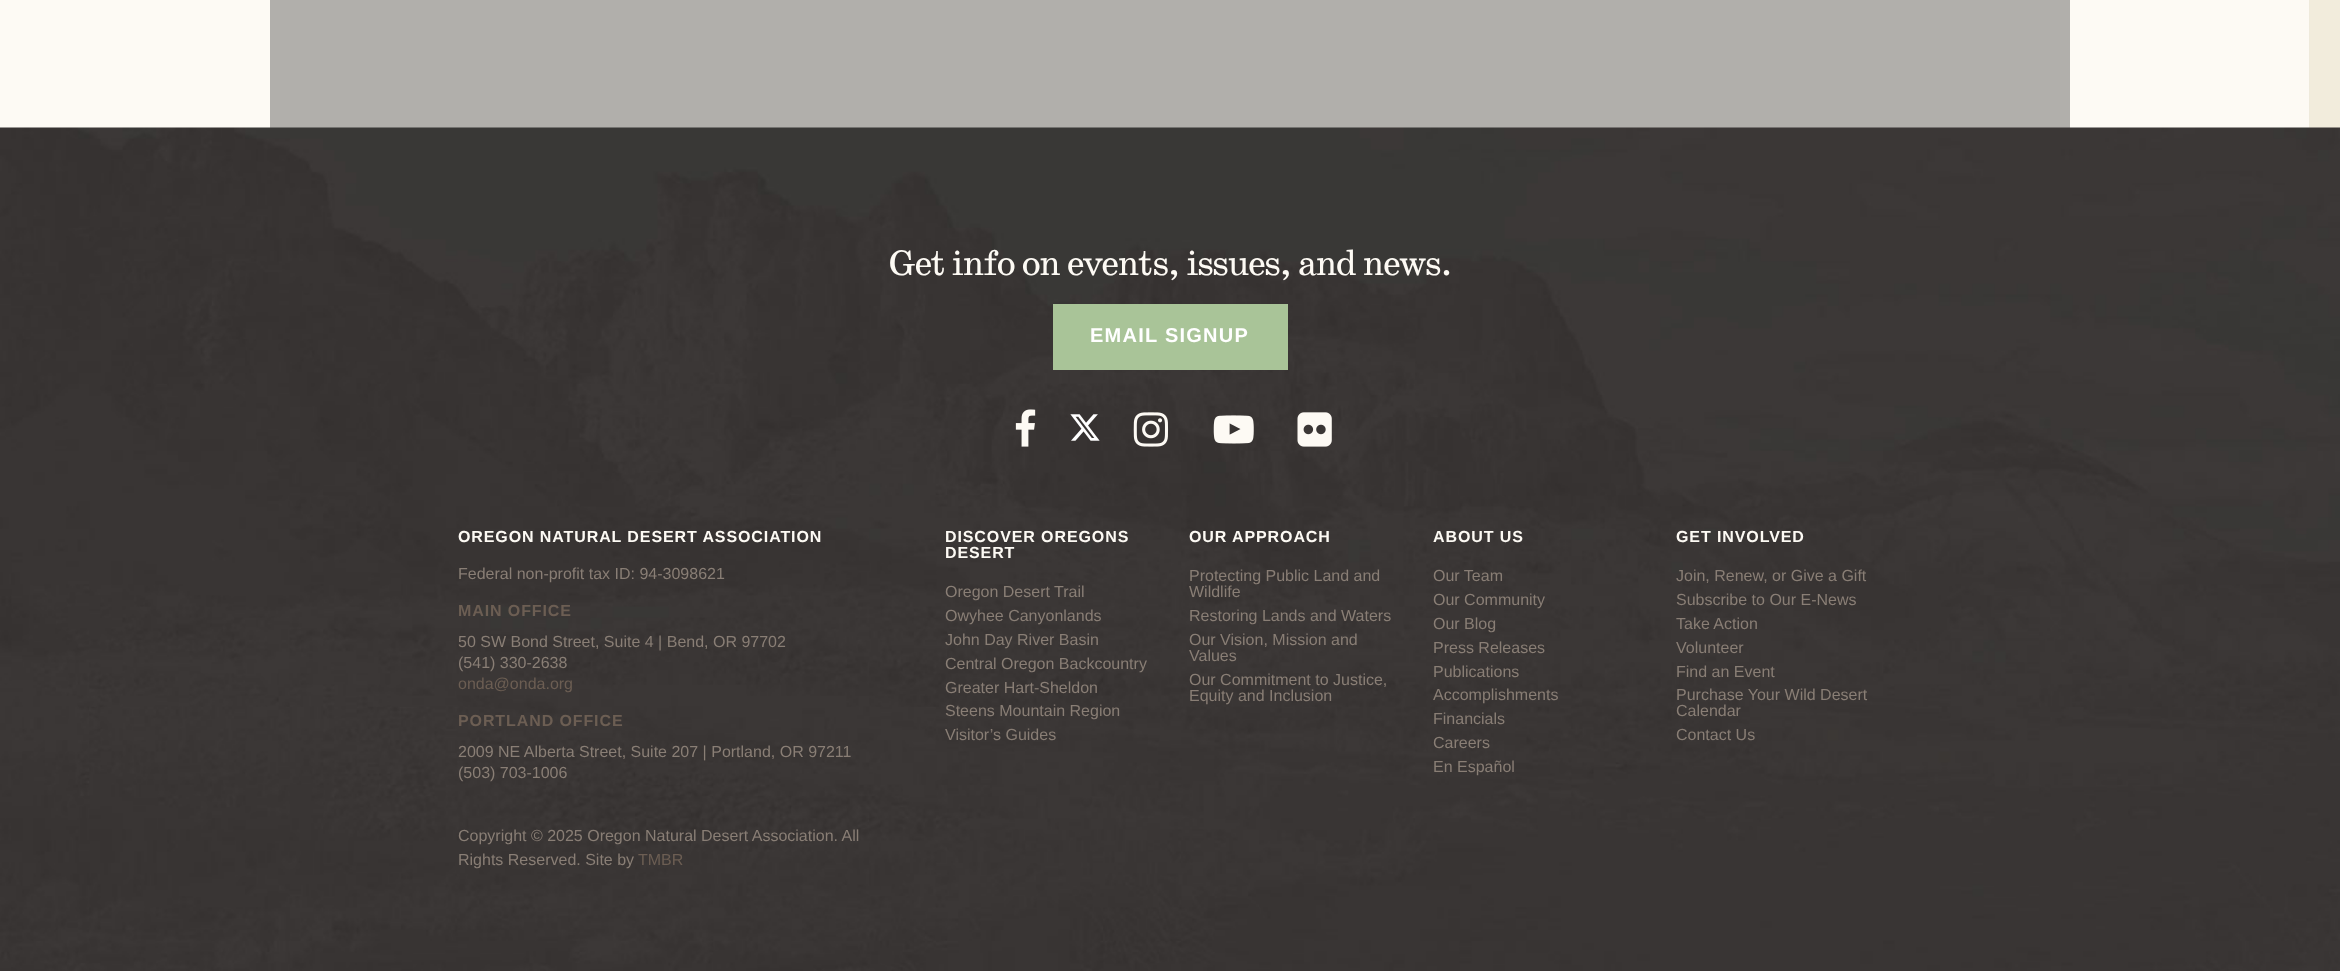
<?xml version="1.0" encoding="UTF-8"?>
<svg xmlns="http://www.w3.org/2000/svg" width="2340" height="971">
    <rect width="100%" height="100%" fill="#FDFAF4"/>
    <rect x="270" y="0" width="1800" height="128" fill="#B1AFAB"/>
    <rect x="2310" y="0" width="30" height="128" fill="#F2ECDC"/>
    <rect x="2309" y="0" width="1" height="128" fill="#EFEADC"/>
    <image x="0" y="127" width="2340" height="844" href="img_01.png"/>
    <text x="889" y="275" font-family="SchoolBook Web" font-size="36" letter-spacing="-1.25" fill="#FDFAF4">Get info on events, issues, and news.</text>
    <rect x="1053" y="304" width="235" height="66" fill="#A9C498"/>
    <text x="1090" y="342" font-family="Liberation Sans" font-size="20" font-weight="700" letter-spacing="1.25" fill="#FFFFFF">EMAIL SIGNUP</text>
    <image x="1015" y="409" width="21" height="38" href="img_02.png"/>
    <image x="1070" y="414" width="30" height="27" href="img_03.png"/>
    <image x="1133" y="412" width="36" height="35" href="img_04.png"/>
    <image x="1213" y="415" width="41" height="29" href="img_05.png"/>
    <image x="1297" y="412" width="35" height="35" href="img_06.png"/>
    <text x="458" y="542" font-family="Liberation Sans" font-size="16" font-weight="700" letter-spacing="0.9" fill="#FDFAF4">OREGON NATURAL DESERT ASSOCIATION</text>
    <text x="458" y="579" font-family="Liberation Sans" font-size="16" fill="#897E75">Federal non-profit tax ID: 94-3098621</text>
    <text x="458" y="616" font-family="Liberation Sans" font-size="16" font-weight="700" letter-spacing="0.9" fill="#6C5E53">MAIN OFFICE</text>
    <text font-family="Liberation Sans" font-size="16" fill="#897E75">
        <tspan x="458" y="647">50 SW Bond Street, Suite 4 | Bend, OR 97702</tspan>
        <tspan x="458" y="668">(541) 330-2638</tspan>
    </text>
    <text x="458" y="689" font-family="Liberation Sans" font-size="16" fill="#6C5E53">onda@onda.org</text>
    <text x="458" y="726" font-family="Liberation Sans" font-size="16" font-weight="700" letter-spacing="0.9" fill="#6C5E53">PORTLAND OFFICE</text>
    <text font-family="Liberation Sans" font-size="16" fill="#897E75">
        <tspan x="458" y="757">2009 NE Alberta Street, Suite 207 | Portland, OR 97211</tspan>
        <tspan x="458" y="778">(503) 703-1006</tspan>
    </text>
    <text font-family="Liberation Sans" font-size="16" fill="#897E75">
        <tspan x="458" y="841">Copyright © 2025 Oregon Natural Desert Association. All</tspan>
        <tspan x="458" y="865">Rights Reserved. Site by</tspan>
    </text>
    <text x="638" y="865" font-family="Liberation Sans" font-size="16" fill="#6C5E53">TMBR</text>
    <text font-family="Liberation Sans" font-size="16" font-weight="700" letter-spacing="0.9" fill="#FDFAF4">
        <tspan x="945" y="542">DISCOVER OREGONS</tspan>
        <tspan x="945" y="558">DESERT</tspan>
    </text>
    <text font-family="Liberation Sans" font-size="16" fill="#897E75">
        <tspan x="945" y="597">Oregon Desert Trail</tspan>
        <tspan x="945" y="621">Owyhee Canyonlands</tspan>
        <tspan x="945" y="645">John Day River Basin</tspan>
        <tspan x="945" y="669">Central Oregon Backcountry</tspan>
        <tspan x="945" y="693">Greater Hart-Sheldon</tspan>
        <tspan x="945" y="716">Steens Mountain Region</tspan>
        <tspan x="945" y="740">Visitor’s Guides</tspan>
    </text>
    <text x="1189" y="542" font-family="Liberation Sans" font-size="16" font-weight="700" letter-spacing="0.9" fill="#FDFAF4">OUR APPROACH</text>
    <text font-family="Liberation Sans" font-size="16" fill="#897E75">
        <tspan x="1189" y="581">Protecting Public Land and</tspan>
        <tspan x="1189" y="597">Wildlife</tspan>
        <tspan x="1189" y="621">Restoring Lands and Waters</tspan>
        <tspan x="1189" y="645">Our Vision, Mission and</tspan>
        <tspan x="1189" y="661">Values</tspan>
        <tspan x="1189" y="685">Our Commitment to Justice,</tspan>
        <tspan x="1189" y="701">Equity and Inclusion</tspan>
    </text>
    <text x="1433" y="542" font-family="Liberation Sans" font-size="16" font-weight="700" letter-spacing="0.9" fill="#FDFAF4">ABOUT US</text>
    <text font-family="Liberation Sans" font-size="16" fill="#897E75">
        <tspan x="1433" y="581">Our Team</tspan>
        <tspan x="1433" y="605">Our Community</tspan>
        <tspan x="1433" y="629">Our Blog</tspan>
        <tspan x="1433" y="653">Press Releases</tspan>
        <tspan x="1433" y="677">Publications</tspan>
        <tspan x="1433" y="700">Accomplishments</tspan>
        <tspan x="1433" y="724">Financials</tspan>
        <tspan x="1433" y="748">Careers</tspan>
        <tspan x="1433" y="772">En Español</tspan>
    </text>
    <text x="1676" y="542" font-family="Liberation Sans" font-size="16" font-weight="700" letter-spacing="0.9" fill="#FDFAF4">GET INVOLVED</text>
    <text font-family="Liberation Sans" font-size="16" fill="#897E75">
        <tspan x="1676" y="581">Join, Renew, or Give a Gift</tspan>
        <tspan x="1676" y="605">Subscribe to Our E-News</tspan>
        <tspan x="1676" y="629">Take Action</tspan>
        <tspan x="1676" y="653">Volunteer</tspan>
        <tspan x="1676" y="677">Find an Event</tspan>
        <tspan x="1676" y="700">Purchase Your Wild Desert</tspan>
        <tspan x="1676" y="716">Calendar</tspan>
        <tspan x="1676" y="740">Contact Us</tspan>
    </text>
</svg>
